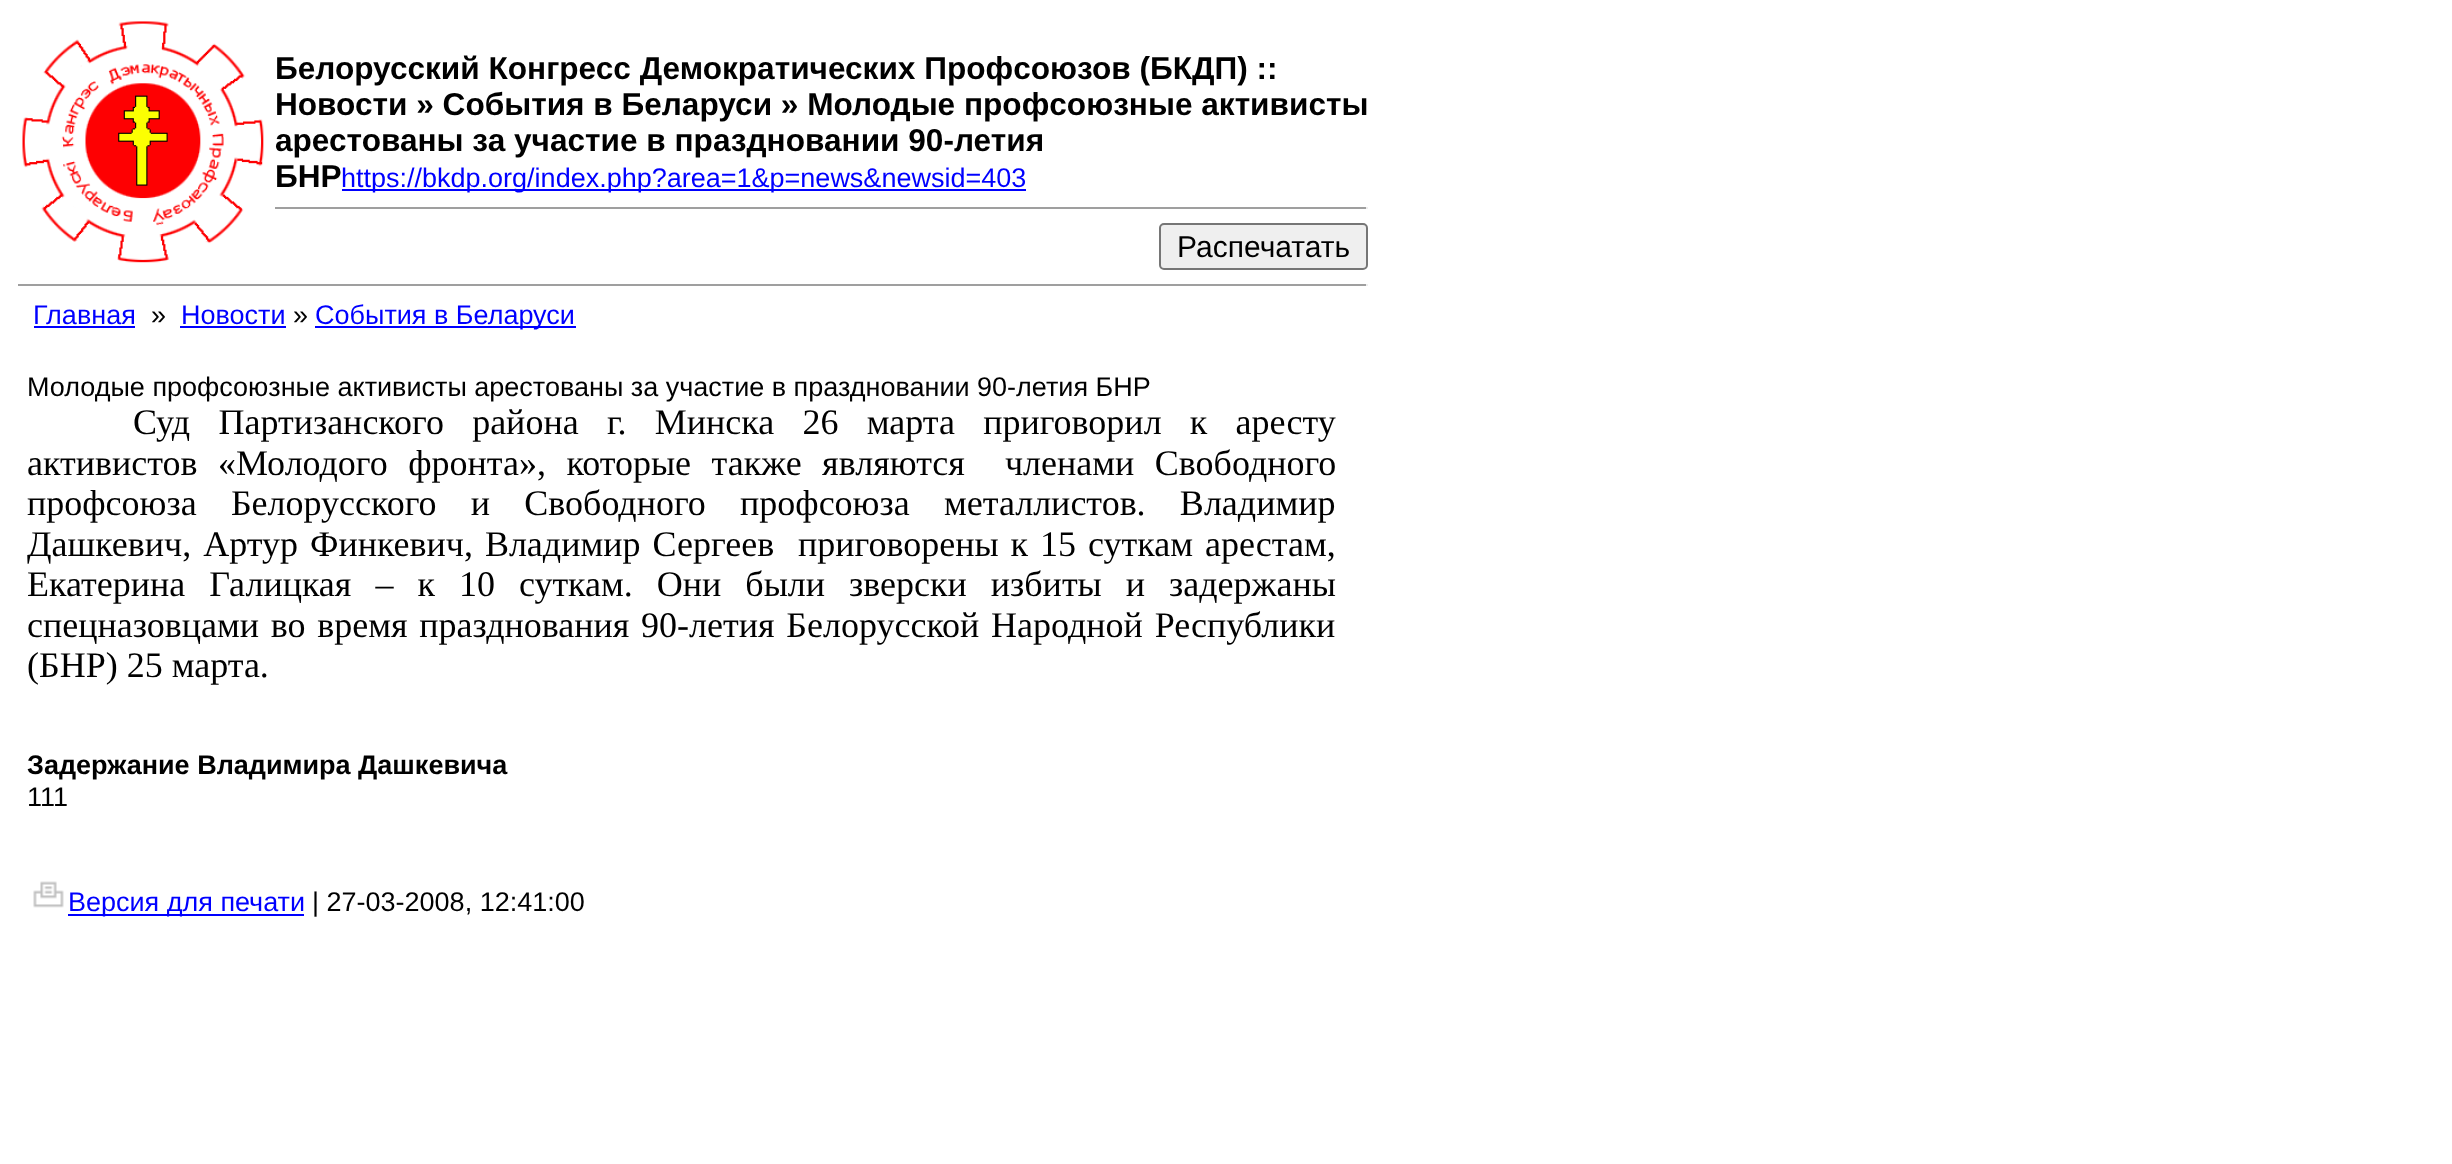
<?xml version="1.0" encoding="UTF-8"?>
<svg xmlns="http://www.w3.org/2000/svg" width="2452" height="1164">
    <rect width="100%" height="100%" fill="#FFFFFF"/>
    <image x="22" y="21" width="242" height="242" href="img_01.png"/>
    <text font-family="Liberation Sans" font-size="31.6" font-weight="700" fill="#000000">
        <tspan x="275" y="79">Белорусский Конгресс Демократических Профсоюзов (БКДП) ::</tspan>
        <tspan x="275" y="115">Новости » События в Беларуси » Молодые профсоюзные активисты</tspan>
        <tspan x="275" y="151">арестованы за участие в праздновании 90-летия</tspan>
        <tspan x="275" y="187">БНР</tspan>
    </text>
    <rect x="342" y="189" width="684" height="2" fill="#0000FF"/>
    <text x="341" y="187" font-family="Liberation Sans" font-size="27" fill="#0000FF">https://bkdp.org/index.php?area=1&amp;p=news&amp;newsid=403</text>
    <rect x="275" y="207" width="1093" height="2" fill="#9F9F9F"/>
    <rect x="1366" y="207" width="2" height="2" fill="#EEEEEE"/>
    <rect x="1160" y="224" width="207" height="45" rx="4" fill="#EFEFEF" stroke="#767676" stroke-width="2"/>
    <text x="1177" y="257" font-family="Liberation Sans" font-size="30" fill="#000000">Распечатать</text>
    <rect x="18" y="284" width="1350" height="2" fill="#9F9F9F"/>
    <rect x="1366" y="284" width="2" height="2" fill="#EEEEEE"/>
    <text x="33" y="324" font-family="Liberation Sans" font-size="27" fill="#0000FF">Главная</text>
    <rect x="34" y="326" width="101" height="2" fill="#0000FF"/>
    <text x="151" y="324" font-family="Liberation Sans" font-size="27" fill="#000000">»</text>
    <text x="181" y="324" font-family="Liberation Sans" font-size="27" fill="#0000FF">Новости</text>
    <rect x="180" y="326" width="106" height="2" fill="#0000FF"/>
    <text x="293" y="324" font-family="Liberation Sans" font-size="27" fill="#000000">»</text>
    <rect x="315" y="326" width="261" height="2" fill="#0000FF"/>
    <text x="315" y="324" font-family="Liberation Sans" font-size="27" fill="#0000FF">События в Беларуси</text>
    <text x="27" y="396" font-family="Liberation Sans" font-size="27" fill="#000000">Молодые профсоюзные активисты арестованы за участие в праздновании 90-летия БНР</text>
    <text x="133" y="434" word-spacing="19.25" font-family="Liberation Serif" font-size="36" fill="#000000">Суд Партизанского района г. Минска 26 марта приговорил к аресту</text>
    <text x="27" y="475" word-spacing="11.5" font-family="Liberation Serif" font-size="36" fill="#000000">активистов «Молодого фронта», которые также являются</text>
    <text x="1005" y="475" word-spacing="11.5" font-family="Liberation Serif" font-size="36" fill="#000000">членами Свободного</text>
    <text font-family="Liberation Serif" font-size="36" fill="#000000">
        <tspan x="27" y="515" word-spacing="25.25">профсоюза Белорусского и Свободного профсоюза металлистов. Владимир</tspan>
        <tspan x="27" y="556" word-spacing="3">Дашкевич, Артур Финкевич, Владимир Сергеев</tspan>
    </text>
    <text x="798" y="556" word-spacing="3" font-family="Liberation Serif" font-size="36" fill="#000000">приговорены к 15 суткам арестам,</text>
    <text font-family="Liberation Serif" font-size="36" fill="#000000">
        <tspan x="27" y="596" word-spacing="15">Екатерина Галицкая – к 10 суткам. Они были зверски избиты и задержаны</tspan>
        <tspan x="27" y="637" word-spacing="2.75">спецназовцами во время празднования 90-летия Белорусской Народной Республики</tspan>
        <tspan x="27" y="677">(БНР) 25 марта.</tspan>
    </text>
    <text x="27" y="774" font-family="Liberation Sans" font-size="27" font-weight="700" fill="#000000">Задержание Владимира Дашкевича</text>
    <text x="27" y="806" font-family="Liberation Sans" font-size="27" fill="#000000">111</text>
    <image x="33" y="881" width="31" height="27" href="img_02.png"/>
    <rect x="68" y="914" width="236" height="2" fill="#0000FF"/>
    <text x="68" y="911" font-family="Liberation Sans" font-size="27" fill="#0000FF">Версия для печати</text>
    <text x="312" y="911" font-family="Liberation Sans" font-size="27" fill="#000000">| 27-03-2008, 12:41:00</text>
</svg>
